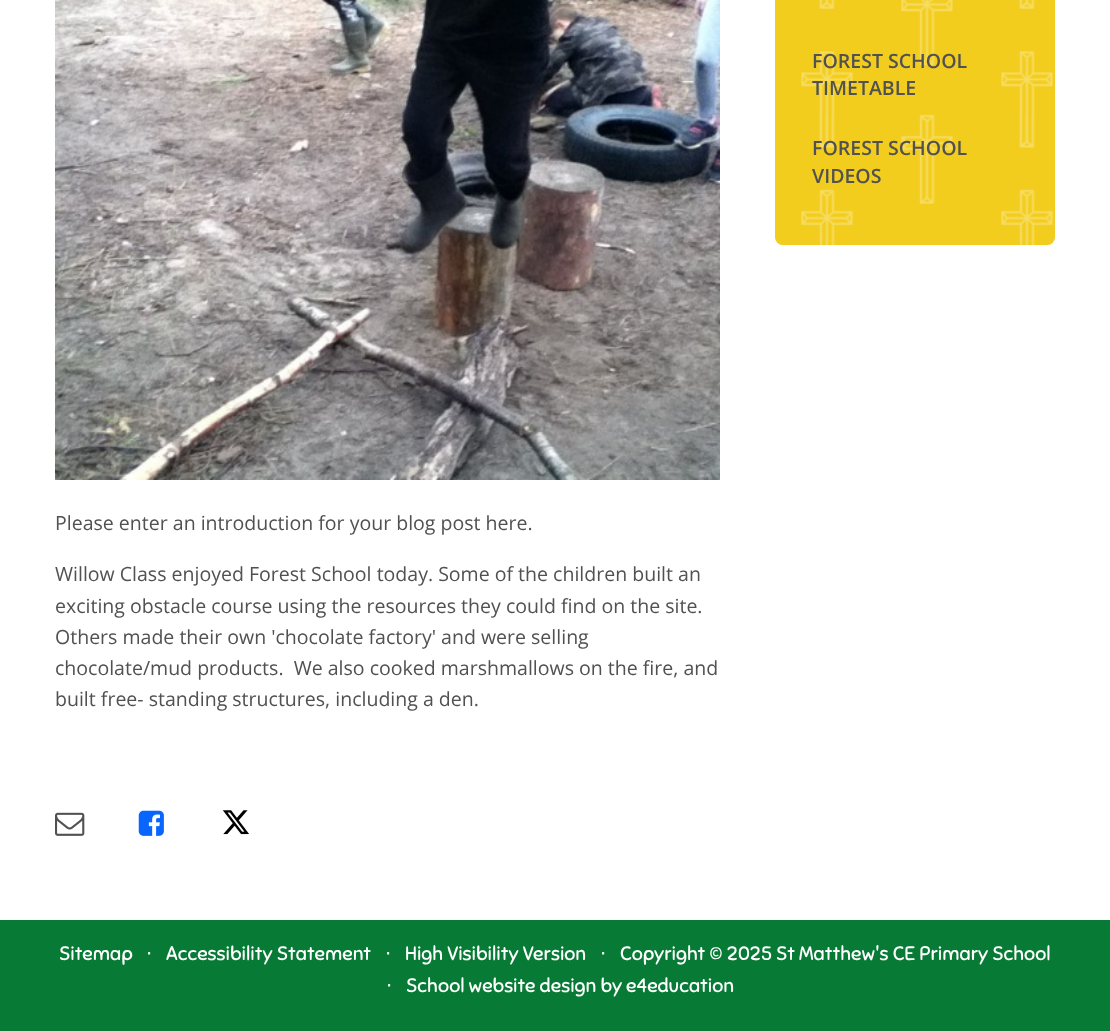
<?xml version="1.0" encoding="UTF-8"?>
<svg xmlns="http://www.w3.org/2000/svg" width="1110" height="1031">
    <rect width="100%" height="100%" fill="#077B35"/>
    <rect x="0" y="0" width="1110" height="920" fill="#FFFFFF"/>
    <image x="775" y="0" width="280" height="245" href="img_01.png"/>
    <text font-family="Open Sans" font-size="19.55" font-weight="600" fill="#515151">
        <tspan x="812" y="68">FOREST SCHOOL</tspan>
        <tspan x="812" y="95">TIMETABLE</tspan>
    </text>
    <text font-family="Open Sans" font-size="19.55" font-weight="600" fill="#515151">
        <tspan x="812" y="155">FOREST SCHOOL</tspan>
        <tspan x="812" y="183">VIDEOS</tspan>
    </text>
    <image x="55" y="0" width="665" height="480" href="img_02.png"/>
    <text x="55" y="530" font-family="Open Sans" font-size="19.55" fill="#515151">Please enter an introduction for your blog post here.</text>
    <text font-family="Open Sans" font-size="19.55" fill="#515151" xml:space="preserve"><tspan x="55" y="581">Willow Class enjoyed Forest School today. Some of the children built an</tspan><tspan x="55" y="613">exciting obstacle course using the resources they could find on the site.</tspan><tspan x="55" y="644">Others made their own 'chocolate factory' and were selling</tspan><tspan x="55" y="675">chocolate/mud products.  We also cooked marshmallows on the fire, and</tspan><tspan x="55" y="706">built free- standing structures, including a den.</tspan></text>
    <image x="55" y="812" width="30" height="24" href="img_03.png"/>
    <image x="138" y="810" width="26" height="26" href="img_04.png"/>
    <image x="222" y="810" width="27" height="25" href="img_05.png"/>
    <text x="59" y="960" font-family="Sniglet" font-size="19.55" fill="#FFFFFF">Sitemap</text>
    <text x="146" y="960" font-family="DejaVu Sans" font-size="19.55" fill="#FFFFFF">⋅</text>
    <text x="166" y="960" font-family="Sniglet" font-size="19.55" fill="#FFFFFF">Accessibility Statement</text>
    <text x="385" y="960" font-family="DejaVu Sans" font-size="19.55" fill="#FFFFFF">⋅</text>
    <text x="405" y="960" font-family="Sniglet" font-size="19.55" fill="#FFFFFF">High Visibility Version</text>
    <text x="600" y="960" font-family="DejaVu Sans" font-size="19.55" fill="#FFFFFF">⋅</text>
    <text x="620" y="960" font-family="Sniglet" font-size="19.55" fill="#FFFFFF">Copyright © 2025 St Matthew's CE Primary School</text>
    <text x="386" y="992" font-family="DejaVu Sans" font-size="19.55" fill="#FFFFFF">⋅</text>
    <text x="406" y="992" font-family="Sniglet" font-size="19.55" fill="#FFFFFF">School website design by e4education</text>
</svg>
